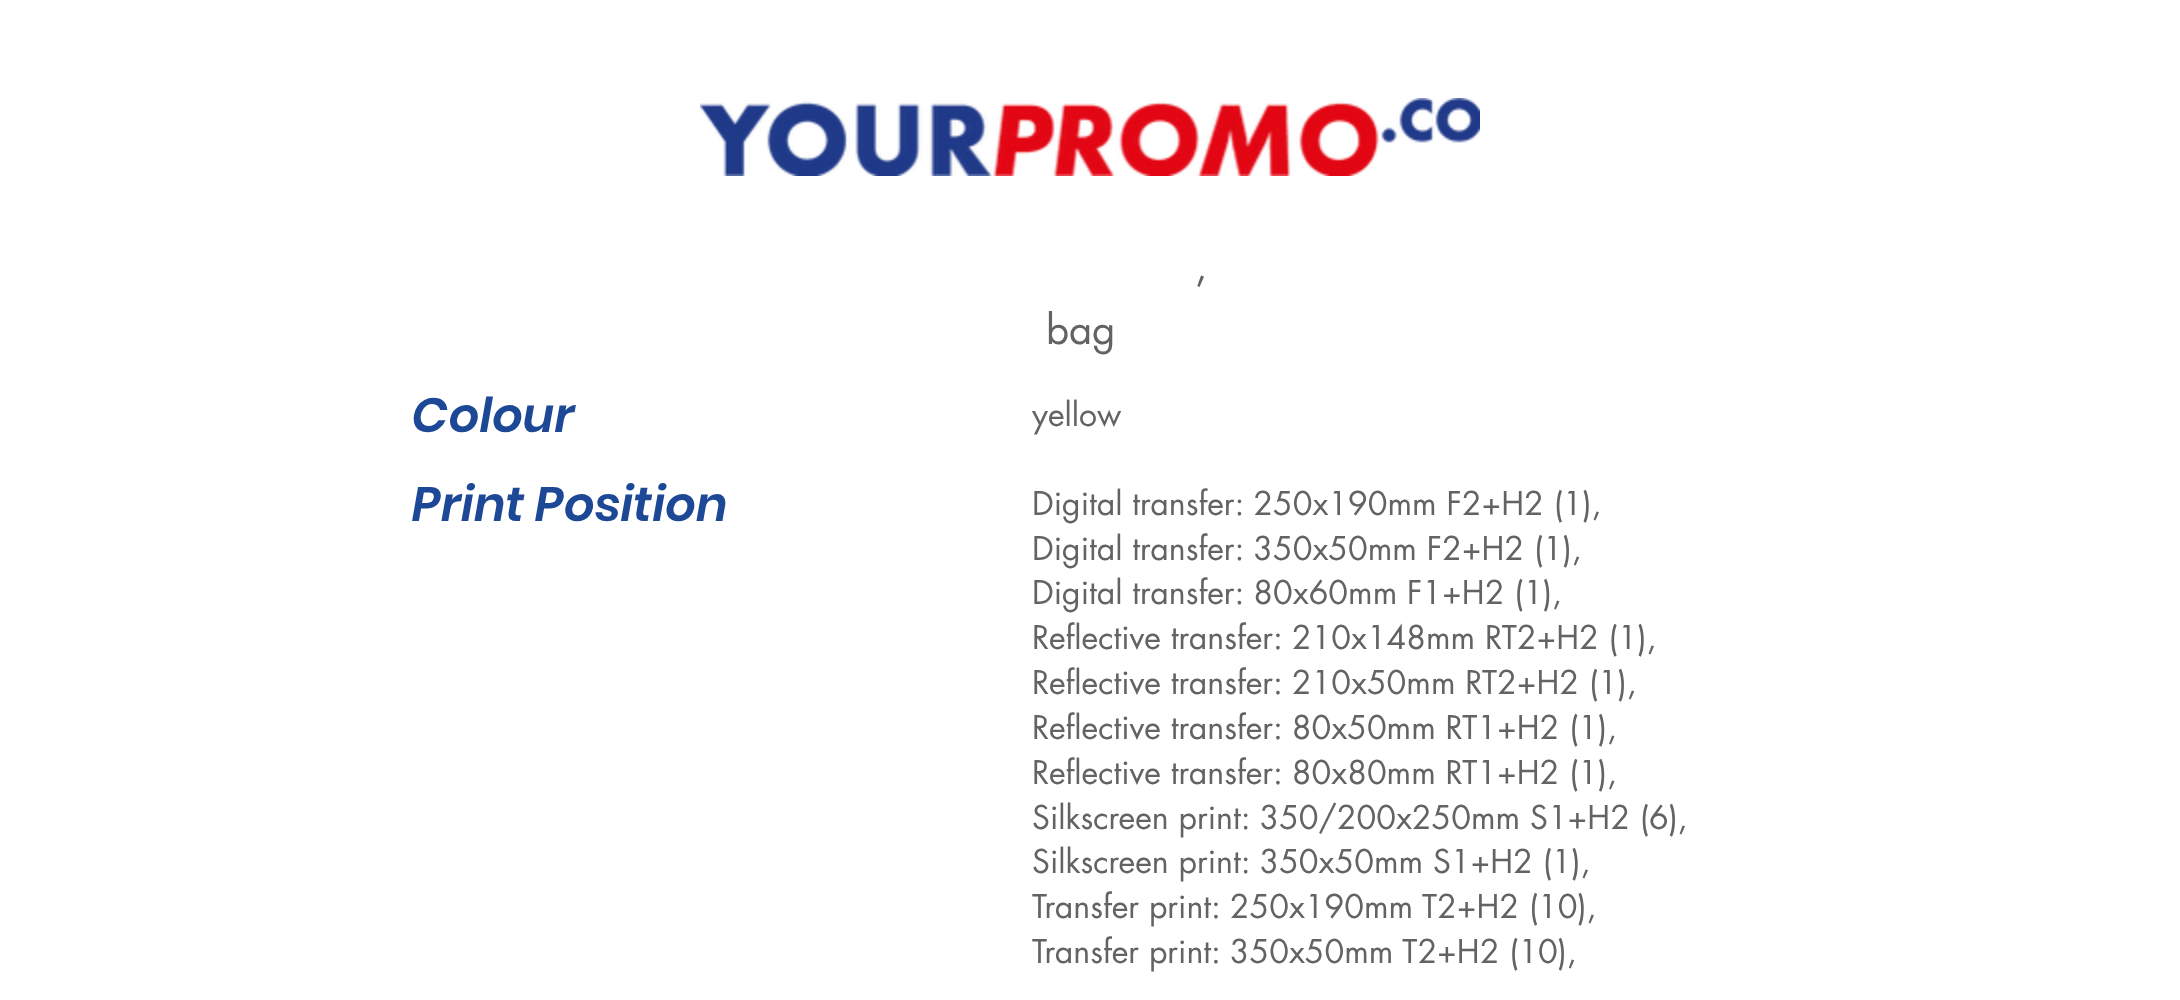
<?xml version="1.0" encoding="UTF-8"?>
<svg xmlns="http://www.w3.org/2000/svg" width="2180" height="1000">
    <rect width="100%" height="100%" fill="#FFFFFF"/>
    <image x="700" y="98" width="780" height="78" href="img_01.png"/>
    <text x="1195" y="280" font-family="futura" font-size="40" fill="#636363">,</text>
    <text x="1046" y="344" font-family="futura" font-size="40" fill="#636363">bag</text>
    <text x="412" y="432" font-family="Poppins" font-size="48" font-weight="600" font-style="italic" fill="#1D4896">Colour</text>
    <text x="1032" y="426" font-family="futura" font-size="32" fill="#636363">yellow</text>
    <text x="412" y="521" font-family="Poppins" font-size="48" font-weight="600" font-style="italic" fill="#1D4896">Print Position</text>
    <text font-family="futura" font-size="32" fill="#636363">
        <tspan x="1032" y="515">Digital transfer: 250x190mm F2+H2 (1),</tspan>
        <tspan x="1032" y="560">Digital transfer: 350x50mm F2+H2 (1),</tspan>
        <tspan x="1032" y="604">Digital transfer: 80x60mm F1+H2 (1),</tspan>
        <tspan x="1032" y="649">Reflective transfer: 210x148mm RT2+H2 (1),</tspan>
        <tspan x="1032" y="694">Reflective transfer: 210x50mm RT2+H2 (1),</tspan>
        <tspan x="1032" y="739">Reflective transfer: 80x50mm RT1+H2 (1),</tspan>
        <tspan x="1032" y="784">Reflective transfer: 80x80mm RT1+H2 (1),</tspan>
        <tspan x="1032" y="829">Silkscreen print: 350/200x250mm S1+H2 (6),</tspan>
        <tspan x="1032" y="873">Silkscreen print: 350x50mm S1+H2 (1),</tspan>
        <tspan x="1032" y="918">Transfer print: 250x190mm T2+H2 (10),</tspan>
        <tspan x="1032" y="963">Transfer print: 350x50mm T2+H2 (10),</tspan>
    </text>
</svg>
